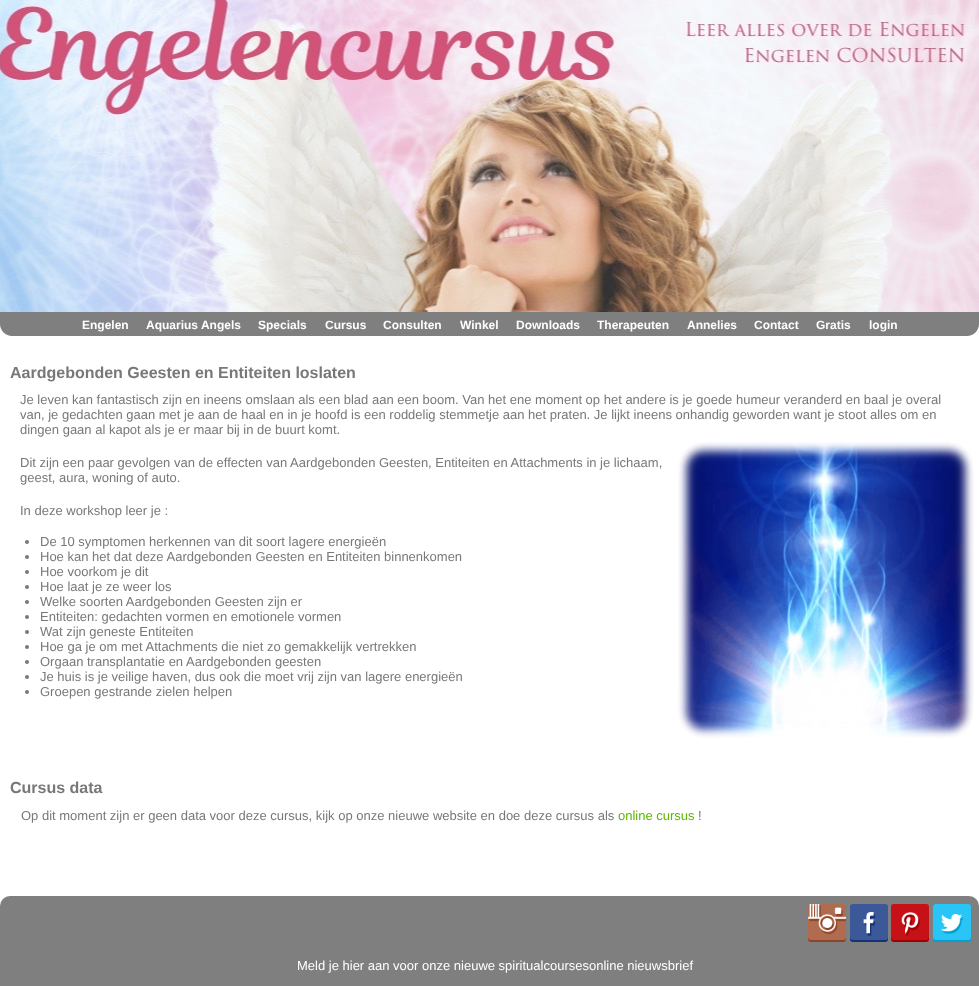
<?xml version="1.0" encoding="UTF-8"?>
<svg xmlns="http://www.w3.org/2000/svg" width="979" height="986">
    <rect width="100%" height="100%" fill="#FFFFFF"/>
    <image x="0" y="0" width="979" height="312" href="img_01.png"/>
    <path d="M 0 312 H 979 V 324 C 979 330.5 973.5 336 967 336 H 12 C 5.5 336 0 330.5 0 324 Z" fill="#7F7F7F"/>
    <text x="82" y="329" font-family="Liberation Sans" font-size="12" font-weight="700" fill="#FFFFFF">Engelen</text>
    <text x="146" y="329" font-family="Liberation Sans" font-size="12" font-weight="700" fill="#FFFFFF">Aquarius Angels</text>
    <text x="258" y="329" font-family="Liberation Sans" font-size="12" font-weight="700" fill="#FFFFFF">Specials</text>
    <text x="325" y="329" font-family="Liberation Sans" font-size="12" font-weight="700" fill="#FFFFFF">Cursus</text>
    <text x="383" y="329" font-family="Liberation Sans" font-size="12" font-weight="700" fill="#FFFFFF">Consulten</text>
    <text x="460" y="329" font-family="Liberation Sans" font-size="12" font-weight="700" fill="#FFFFFF">Winkel</text>
    <text x="516" y="329" font-family="Liberation Sans" font-size="12" font-weight="700" fill="#FFFFFF">Downloads</text>
    <text x="597" y="329" font-family="Liberation Sans" font-size="12" font-weight="700" fill="#FFFFFF">Therapeuten</text>
    <text x="687" y="329" font-family="Liberation Sans" font-size="12" font-weight="700" fill="#FFFFFF">Annelies</text>
    <text x="754" y="329" font-family="Liberation Sans" font-size="12" font-weight="700" fill="#FFFFFF">Contact</text>
    <text x="816" y="329" font-family="Liberation Sans" font-size="12" font-weight="700" fill="#FFFFFF">Gratis</text>
    <text x="869" y="329" font-family="Liberation Sans" font-size="12" font-weight="700" fill="#FFFFFF">login</text>
    <text x="10" y="378" font-family="Liberation Sans" font-size="16" font-weight="700" fill="#787878">Aardgebonden Geesten en Entiteiten loslaten</text>
    <text font-family="Liberation Sans" font-size="13" fill="#787878">
        <tspan x="20" y="404">Je leven kan fantastisch zijn en ineens omslaan als een blad aan een boom. Van het ene moment op het andere is je goede humeur veranderd en baal je overal</tspan>
        <tspan x="20" y="419">van, je gedachten gaan met je aan de haal en in je hoofd is een roddelig stemmetje aan het praten. Je lijkt ineens onhandig geworden want je stoot alles om en</tspan>
        <tspan x="20" y="434">dingen gaan al kapot als je er maar bij in de buurt komt.</tspan>
    </text>
    <text font-family="Liberation Sans" font-size="13" fill="#787878">
        <tspan x="20" y="467">Dit zijn een paar gevolgen van de effecten van Aardgebonden Geesten, Entiteiten en Attachments in je lichaam,</tspan>
        <tspan x="20" y="482">geest, aura, woning of auto.</tspan>
    </text>
    <image x="678" y="442" width="296" height="296" href="img_02.png"/>
    <text x="20" y="515" font-family="Liberation Sans" font-size="13" fill="#787878">In deze workshop leer je :</text>
    <circle cx="27" cy="542" r="2" fill="#787878"/>
    <text x="40" y="546" font-family="Liberation Sans" font-size="13" fill="#787878">De 10 symptomen herkennen van dit soort lagere energieën</text>
    <circle cx="27" cy="557" r="2" fill="#787878"/>
    <text x="40" y="561" font-family="Liberation Sans" font-size="13" fill="#787878">Hoe kan het dat deze Aardgebonden Geesten en Entiteiten binnenkomen</text>
    <circle cx="27" cy="572" r="2" fill="#787878"/>
    <text x="40" y="576" font-family="Liberation Sans" font-size="13" fill="#787878">Hoe voorkom je dit</text>
    <circle cx="27" cy="587" r="2" fill="#787878"/>
    <text x="40" y="591" font-family="Liberation Sans" font-size="13" fill="#787878">Hoe laat je ze weer los</text>
    <circle cx="27" cy="602" r="2" fill="#787878"/>
    <text x="40" y="606" font-family="Liberation Sans" font-size="13" fill="#787878">Welke soorten Aardgebonden Geesten zijn er</text>
    <circle cx="27" cy="617" r="2" fill="#787878"/>
    <text x="40" y="621" font-family="Liberation Sans" font-size="13" fill="#787878">Entiteiten: gedachten vormen en emotionele vormen</text>
    <circle cx="27" cy="632" r="2" fill="#787878"/>
    <text x="40" y="636" font-family="Liberation Sans" font-size="13" fill="#787878">Wat zijn geneste Entiteiten</text>
    <circle cx="27" cy="647" r="2" fill="#787878"/>
    <text x="40" y="651" font-family="Liberation Sans" font-size="13" fill="#787878">Hoe ga je om met Attachments die niet zo gemakkelijk vertrekken</text>
    <circle cx="27" cy="662" r="2" fill="#787878"/>
    <text x="40" y="666" font-family="Liberation Sans" font-size="13" fill="#787878">Orgaan transplantatie en Aardgebonden geesten</text>
    <circle cx="27" cy="677" r="2" fill="#787878"/>
    <text x="40" y="681" font-family="Liberation Sans" font-size="13" fill="#787878">Je huis is je veilige haven, dus ook die moet vrij zijn van lagere energieën</text>
    <circle cx="27" cy="692" r="2" fill="#787878"/>
    <text x="40" y="696" font-family="Liberation Sans" font-size="13" fill="#787878">Groepen gestrande zielen helpen</text>
    <text x="10" y="793" font-family="Liberation Sans" font-size="16" font-weight="700" fill="#787878">Cursus data</text>
    <text x="21" y="820" font-family="Liberation Sans" font-size="13" fill="#787878">Op dit moment zijn er geen data voor deze cursus, kijk op onze nieuwe website en doe deze cursus als</text>
    <text x="618" y="820" font-family="Liberation Sans" font-size="13" fill="#5BB700">online cursus</text>
    <text x="698" y="820" font-family="Liberation Sans" font-size="13" fill="#787878">!</text>
    <rect x="0" y="896" width="979" height="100" rx="10" fill="#7F7F7F"/>
    <image x="808" y="904" width="38" height="38" href="img_03.png"/>
    <image x="850" y="904" width="38" height="38" href="img_04.png"/>
    <image x="891" y="904" width="38" height="38" href="img_05.png"/>
    <image x="933" y="904" width="38" height="38" href="img_06.png"/>
    <text x="297" y="970" font-family="Liberation Sans" font-size="13" fill="#FFFFFF">Meld je hier aan voor onze nieuwe spiritualcoursesonline nieuwsbrief</text>
</svg>
